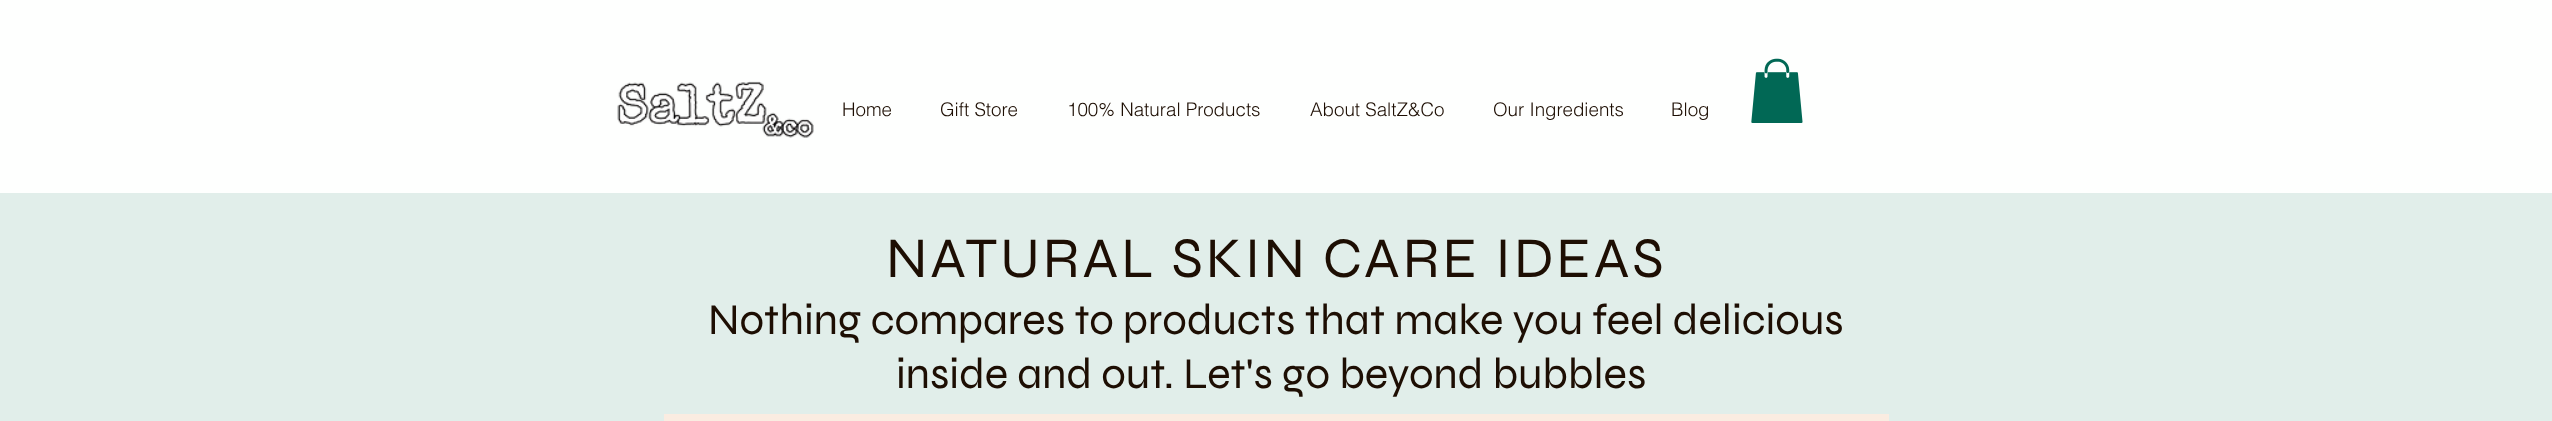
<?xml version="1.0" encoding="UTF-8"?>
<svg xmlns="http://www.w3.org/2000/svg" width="2552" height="421">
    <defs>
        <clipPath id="clip1"><path d="M 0 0 H 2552 V 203 H 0 Z M 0 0 H 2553 V 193 H 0 Z" clip-rule="evenodd"/></clipPath>
        <filter id="blur1" x="-50%" y="-200%" width="200%" height="500%"><feGaussianBlur stdDeviation="3"/></filter>
    </defs>
    <rect width="100%" height="100%" fill="#D5FFD1"/>
    <g clip-path="url(#clip1)">
        <rect x="0" y="0" width="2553" height="193" fill="#000000" fill-opacity="0.7" filter="url(#blur1)"/>
    </g>
    <rect x="0" y="0" width="2552" height="193" fill="#FFFFFF" fill-opacity="0.97"/>
    <image x="617" y="81" width="197" height="57" href="img_01.png"/>
    <text x="842" y="116" font-family="helvetica" font-size="18.75" font-weight="300" fill="#1D0E03">Home</text>
    <text x="940" y="116" font-family="helvetica" font-size="18.75" font-weight="300" fill="#1D0E03">Gift Store</text>
    <text x="1067" y="116" font-family="helvetica" font-size="18.75" font-weight="300" fill="#1D0E03">100% Natural Products</text>
    <text x="1310" y="116" font-family="helvetica" font-size="18.75" font-weight="300" fill="#1D0E03">About SaltZ&amp;Co</text>
    <text x="1493" y="116" font-family="helvetica" font-size="18.75" font-weight="300" fill="#1D0E03">Our Ingredients</text>
    <text x="1671" y="116" font-family="helvetica" font-size="18.75" font-weight="300" fill="#1D0E03">Blog</text>
    <image x="1751" y="58" width="52" height="65" href="img_02.png"/>
    <rect x="0" y="193" width="2552" height="228" fill="#E1EEEA"/>
    <text x="886" y="277" font-family="Syne" font-size="57.5" letter-spacing="2.9" fill="#1D0E03">NATURAL SKIN CARE IDEAS</text>
    <text x="708" y="334" font-family="Syne" font-size="43.75" fill="#1D0E03">Nothing compares to products that make you feel delicious</text>
    <text x="896" y="388" font-family="Syne" font-size="43.75" fill="#1D0E03">inside and out. Let's go beyond bubbles</text>
    <rect x="664" y="414" width="1225" height="7" fill="#FAECE1"/>
</svg>
